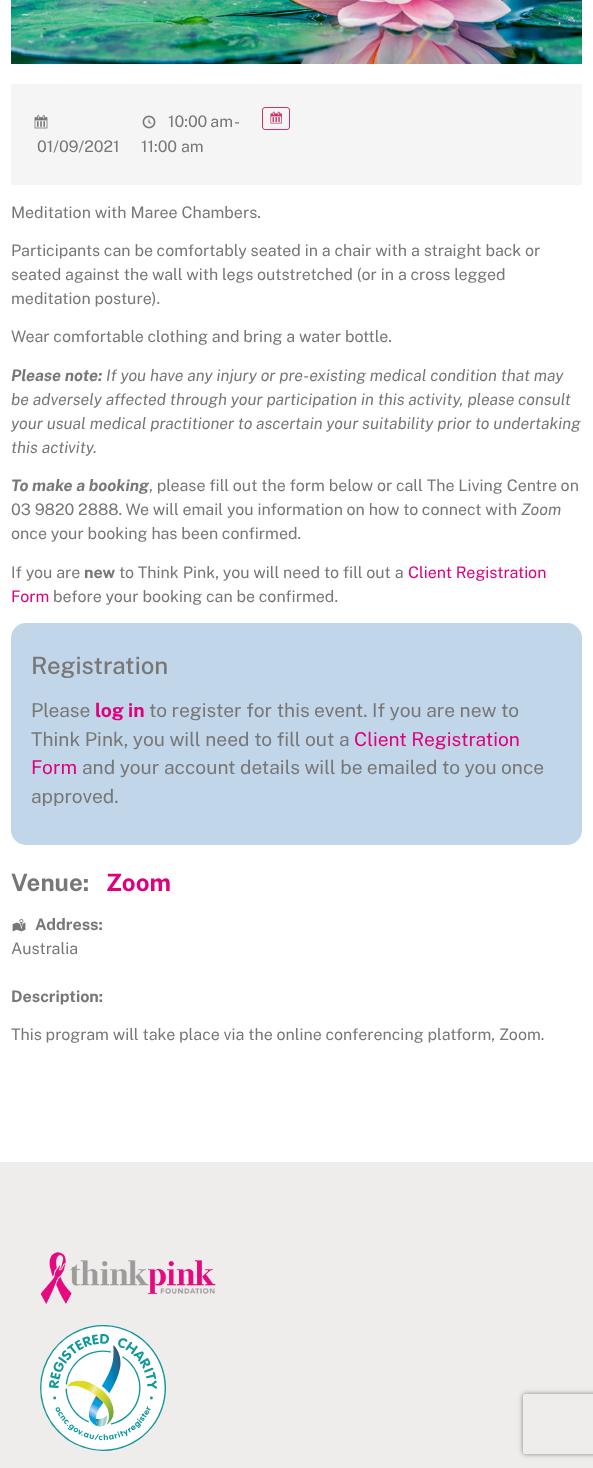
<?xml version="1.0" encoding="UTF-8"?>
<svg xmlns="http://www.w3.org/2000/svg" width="593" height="1468">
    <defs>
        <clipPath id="clip1"><path d="M 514 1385 H 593 V 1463 H 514 Z M 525 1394 H 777 C 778 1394 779 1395 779 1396 V 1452 C 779 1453 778 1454 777 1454 H 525 C 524 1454 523 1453 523 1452 V 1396 C 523 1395 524 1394 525 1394 Z" clip-rule="evenodd"/></clipPath>
        <filter id="blur1" x="-50%" y="-200%" width="200%" height="500%"><feGaussianBlur stdDeviation="2.5"/></filter>
    </defs>
    <rect width="100%" height="100%" fill="#FFFFFF"/>
    <image x="11" y="0" width="571" height="64" href="img_01.png"/>
    <rect x="11" y="84" width="571" height="101" fill="#F5F5F5"/>
    <image x="34" y="115" width="14" height="14" href="img_02.png"/>
    <text x="37" y="152" font-family="Public Sans" font-size="16" fill="#777777">01/09/2021</text>
    <image x="142" y="115" width="14" height="14" href="img_03.png"/>
    <text x="168" y="127" word-spacing="-1" font-family="Public Sans" font-size="16" fill="#777777">10:00 am -</text>
    <text x="141" y="152" font-family="Public Sans" font-size="16" fill="#777777">11:00 am</text>
    <rect x="262.5" y="107.5" width="27" height="22" rx="2.5" fill="none" stroke="#CC3366"/>
    <image x="270" y="111" width="12" height="13" href="img_04.png"/>
    <text x="11" y="218" font-family="Public Sans" font-size="16" fill="#777777">Meditation with Maree Chambers.</text>
    <text font-family="Public Sans" font-size="16" fill="#777777">
        <tspan x="11" y="256">Participants can be comfortably seated in a chair with a straight back or</tspan>
        <tspan x="11" y="280">seated against the wall with legs outstretched (or in a cross legged</tspan>
        <tspan x="11" y="304">meditation posture).</tspan>
    </text>
    <text x="11" y="342" font-family="Public Sans" font-size="16" fill="#777777">Wear comfortable clothing and bring a water bottle.</text>
    <text x="11" y="381" font-family="Public Sans" font-size="16" font-weight="700" font-style="italic" fill="#777777">Please note:</text>
    <text x="106" y="381" font-family="Public Sans" font-size="16" font-style="italic" fill="#777777">If you have any injury or pre-existing medical condition that may</text>
    <text font-family="Public Sans" font-size="16" font-style="italic" fill="#777777">
        <tspan x="11" y="405">be adversely affected through your participation in this activity, please consult</tspan>
        <tspan x="11" y="429">your usual medical practitioner to ascertain your suitability prior to undertaking</tspan>
        <tspan x="11" y="453">this activity.</tspan>
    </text>
    <text x="11" y="491" font-family="Public Sans" font-size="16" font-weight="700" font-style="italic" fill="#777777">To make a booking</text>
    <text x="149" y="491" font-family="Public Sans" font-size="16" fill="#777777">, please fill out the form below or call The Living Centre on</text>
    <text x="11" y="515" font-family="Public Sans" font-size="16" fill="#777777">03 9820 2888. We will email you information on how to connect with</text>
    <text x="521" y="515" font-family="Public Sans" font-size="16" font-style="italic" fill="#777777">Zoom</text>
    <text x="11" y="539" font-family="Public Sans" font-size="16" fill="#777777">once your booking has been confirmed.</text>
    <text x="11" y="578" font-family="Public Sans" font-size="16" fill="#777777">If you are</text>
    <text x="84" y="578" font-family="Public Sans" font-size="16" font-weight="700" fill="#777777">new</text>
    <text x="119" y="578" font-family="Public Sans" font-size="16" fill="#777777">to Think Pink, you will need to fill out a</text>
    <text x="408" y="578" font-family="Public Sans" font-size="16" fill="#DF007C">Client Registration</text>
    <text x="11" y="602" font-family="Public Sans" font-size="16" fill="#DF007C">Form</text>
    <text x="53" y="602" font-family="Public Sans" font-size="16" fill="#777777">before your booking can be confirmed.</text>
    <rect x="11" y="623" width="571" height="222" rx="15" fill="#C2D6E9"/>
    <text x="31" y="674" font-family="Public Sans" font-size="24" font-weight="500" fill="#777777">Registration</text>
    <text x="31" y="717" font-family="Public Sans" font-size="19.2" fill="#777777">Please</text>
    <text x="95" y="717" font-family="Public Sans" font-size="19.2" font-weight="700" fill="#DF007C">log in</text>
    <text x="149" y="717" font-family="Public Sans" font-size="19.2" fill="#777777">to register for this event. If you are new to</text>
    <text x="31" y="746" font-family="Public Sans" font-size="19.2" fill="#777777">Think Pink, you will need to fill out a</text>
    <text x="354" y="746" font-family="Public Sans" font-size="19.2" fill="#DF007C">Client Registration</text>
    <text x="31" y="774" font-family="Public Sans" font-size="19.2" fill="#DF007C">Form</text>
    <text x="82" y="774" font-family="Public Sans" font-size="19.2" fill="#777777">and your account details will be emailed to you once</text>
    <text x="31" y="803" font-family="Public Sans" font-size="19.2" fill="#777777">approved.</text>
    <text x="11" y="891" font-family="Public Sans" font-size="24" font-weight="700" fill="#777777">Venue:</text>
    <text x="106" y="891" font-family="Public Sans" font-size="24" font-weight="700" fill="#DF007C">Zoom</text>
    <image x="12" y="919" width="14" height="13" href="img_05.png"/>
    <text x="35" y="930" font-family="Public Sans" font-size="16" font-weight="700" fill="#777777">Address:</text>
    <text x="11" y="954" font-family="Public Sans" font-size="16" fill="#777777">Australia</text>
    <text x="11" y="1002" font-family="Public Sans" font-size="16" font-weight="700" fill="#777777">Description:</text>
    <text x="11" y="1040" font-family="Public Sans" font-size="16" fill="#777777">This program will take place via the online conferencing platform, Zoom.</text>
    <rect x="0" y="1162" width="593" height="306" fill="#EEEDEB"/>
    <image x="40" y="1252" width="176" height="53" href="img_06.png"/>
    <image x="40" y="1325" width="126" height="126" href="img_07.png"/>
    <g clip-path="url(#clip1)">
        <rect x="523" y="1394" width="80" height="60" rx="2" fill="#808080" filter="url(#blur1)"/>
    </g>
</svg>
